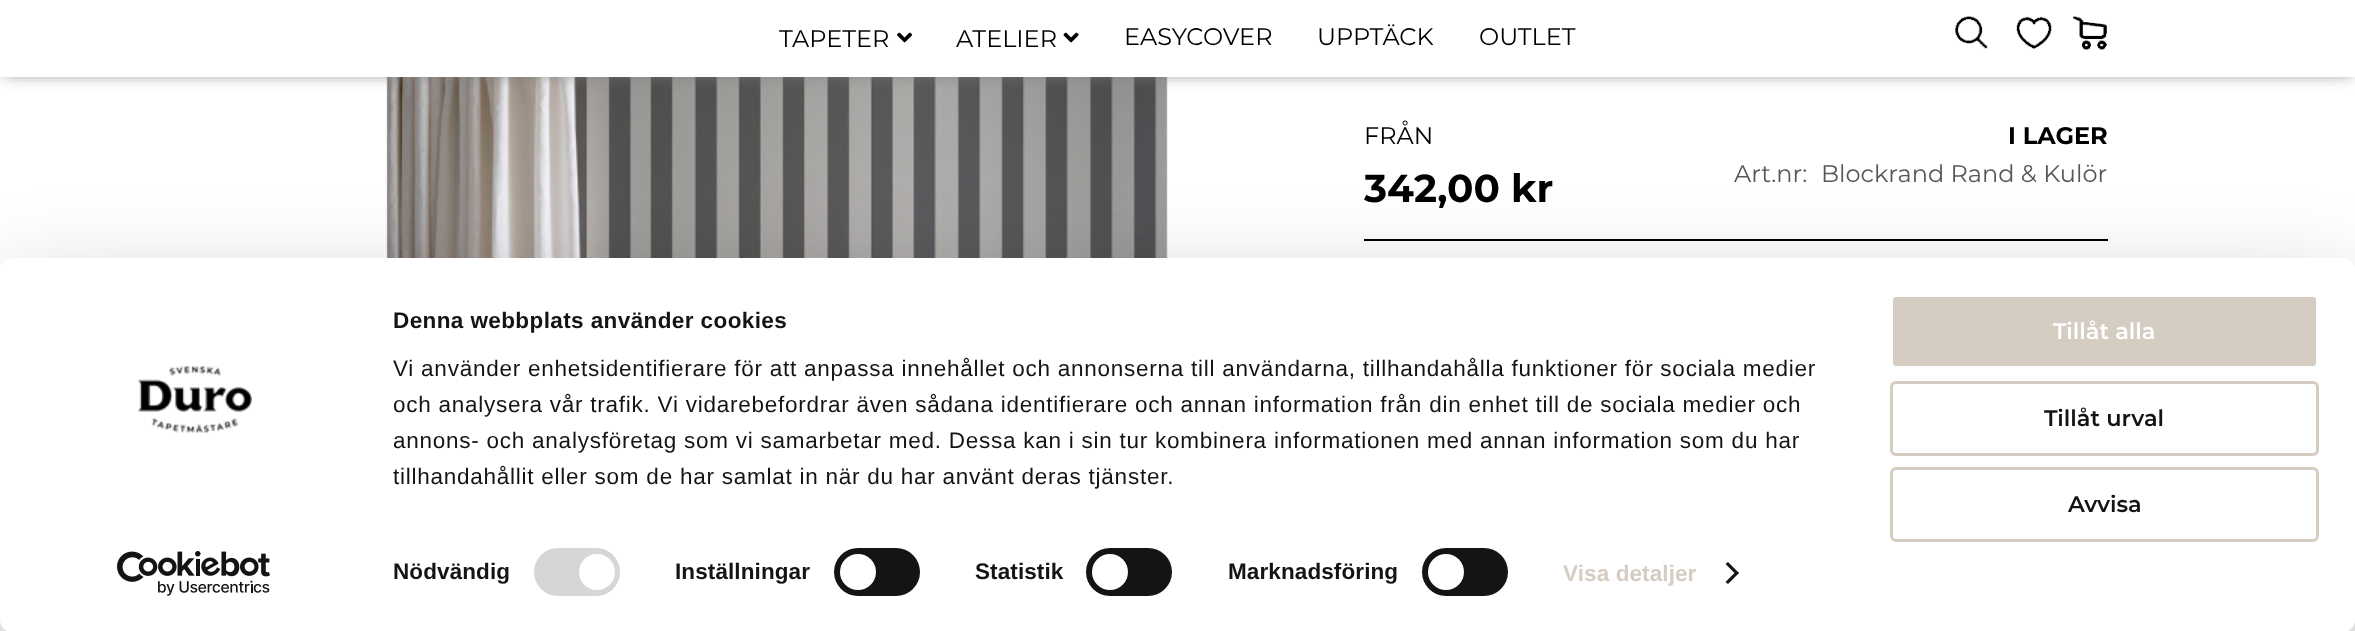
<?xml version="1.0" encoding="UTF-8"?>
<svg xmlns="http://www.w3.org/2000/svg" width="2355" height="631">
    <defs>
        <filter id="blur1" x="-50%" y="-200%" width="200%" height="500%"><feGaussianBlur stdDeviation="7.5"/></filter>
        <filter id="blur2" x="-50%" y="-200%" width="200%" height="500%"><feGaussianBlur stdDeviation="52.5"/></filter>
    </defs>
    <rect width="100%" height="100%" fill="#FFFFFF"/>
    <image x="386" y="77" width="782" height="181" href="img_06.png"/>
    <rect x="3" y="3" width="2349" height="71" fill="#808080" filter="url(#blur1)"/>
    <rect x="0" y="0" width="2355" height="77" fill="#FFFFFF"/>
    <text x="779" y="47" font-family="Montserrat" font-size="24" fill="#000000">TAPETER</text>
    <image x="897" y="32" width="15" height="11" href="img_01.png"/>
    <text x="956" y="47" font-family="Montserrat" font-size="24" fill="#000000">ATELIER</text>
    <image x="1063" y="32" width="16" height="11" href="img_02.png"/>
    <text x="1124" y="45" font-family="Montserrat" font-size="24" fill="#000000">EASYCOVER</text>
    <text x="1317" y="45" font-family="Montserrat" font-size="24" fill="#000000">UPPTÄCK</text>
    <text x="1479" y="45" font-family="Montserrat" font-size="24" fill="#000000">OUTLET</text>
    <image x="1954" y="16" width="35" height="33" href="img_03.png"/>
    <image x="2016" y="16" width="36" height="34" href="img_04.png"/>
    <image x="2073" y="16" width="34" height="34" href="img_05.png"/>
    <rect x="1364" y="239" width="744" height="2" fill="#000000"/>
    <text x="1364" y="144" font-family="Montserrat" font-size="24" fill="#000000">FRÅN</text>
    <text x="1364" y="202" font-family="Montserrat" font-size="39" font-weight="700" fill="#000000">342,00 kr</text>
    <text x="2008" y="144" font-family="Montserrat" font-size="24" font-weight="700" fill="#000000">I LAGER</text>
    <text x="1734" y="182" font-family="Montserrat" font-size="24" fill="#575757">Art.nr:</text>
    <text x="1821" y="182" font-family="Montserrat" font-size="24" fill="#575757">Blockrand Rand &amp; Kulör</text>
    <rect x="0" y="303" width="2355" height="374" rx="12" fill="#000000" fill-opacity="0.3" filter="url(#blur2)"/>
    <rect x="0" y="258" width="2355" height="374" rx="12" fill="#FFFFFF"/>
    <image x="137" y="366" width="115" height="67" href="img_07.png"/>
    <image x="117" y="551" width="153" height="45" href="img_08.png"/>
    <text x="393" y="328" font-family="Liberation Sans" font-size="22.5" font-weight="700" letter-spacing="0.4" fill="#141414">Denna webbplats använder cookies</text>
    <text font-family="Liberation Sans" font-size="22.5" letter-spacing="0.75" fill="#141414">
        <tspan x="393" y="376">Vi använder enhetsidentifierare för att anpassa innehållet och annonserna till användarna, tillhandahålla funktioner för sociala medier</tspan>
        <tspan x="393" y="412">och analysera vår trafik. Vi vidarebefordrar även sådana identifierare och annan information från din enhet till de sociala medier och</tspan>
        <tspan x="393" y="448">annons- och analysföretag som vi samarbetar med. Dessa kan i sin tur kombinera informationen med annan information som du har</tspan>
        <tspan x="393" y="484">tillhandahållit eller som de har samlat in när du har använt deras tjänster.</tspan>
    </text>
    <text x="393" y="579" font-family="Liberation Sans" font-size="22.5" font-weight="700" letter-spacing="0.1" fill="#141414">Nödvändig</text>
    <rect x="534" y="548" width="86" height="48" rx="24" fill="#D6D6D6"/>
    <circle cx="597" cy="572" r="18" fill="#FFFFFF"/>
    <text x="675" y="579" font-family="Liberation Sans" font-size="22.5" font-weight="700" letter-spacing="0.1" fill="#141414">Inställningar</text>
    <rect x="834" y="548" width="86" height="48" rx="24" fill="#141414"/>
    <circle cx="858" cy="572" r="18" fill="#FFFFFF"/>
    <text x="975" y="579" font-family="Liberation Sans" font-size="22.5" font-weight="700" letter-spacing="0.1" fill="#141414">Statistik</text>
    <rect x="1086" y="548" width="86" height="48" rx="24" fill="#141414"/>
    <circle cx="1110" cy="572" r="18" fill="#FFFFFF"/>
    <text x="1228" y="579" font-family="Liberation Sans" font-size="22.5" font-weight="700" letter-spacing="0.1" fill="#141414">Marknadsföring</text>
    <rect x="1422" y="548" width="86" height="48" rx="24" fill="#141414"/>
    <circle cx="1446" cy="572" r="18" fill="#FFFFFF"/>
    <text x="1563" y="581" font-family="Liberation Sans" font-size="22.5" font-weight="700" letter-spacing="0.1" fill="#D5CCC2">Visa detaljer</text>
    <path d="M 1728 562 L 1739 573 L 1736.5 575 L 1725.5 564 Z" fill="#141414"/>
    <path d="M 1736.5 571 L 1739 573 L 1728 584 L 1725.5 582 Z" fill="#141414"/>
    <rect x="1891.5" y="295.5" width="426" height="72" rx="4.5" fill="#D5CCC2" stroke="#FFFFFF" stroke-width="3"/>
    <text x="2053" y="339" font-family="Montserrat" font-size="22.5" font-weight="600" fill="#FFFFFF">Tillåt alla</text>
    <rect x="1891.5" y="382.5" width="426" height="72" rx="4.5" fill="none" stroke="#D5CCC2" stroke-width="3"/>
    <text x="2044" y="426" font-family="Montserrat" font-size="22.5" font-weight="600" fill="#141414">Tillåt urval</text>
    <rect x="1891.5" y="468.5" width="426" height="72" rx="4.5" fill="none" stroke="#D5CCC2" stroke-width="3"/>
    <text x="2068" y="512" font-family="Montserrat" font-size="22.5" font-weight="600" fill="#141414">Avvisa</text>
</svg>
